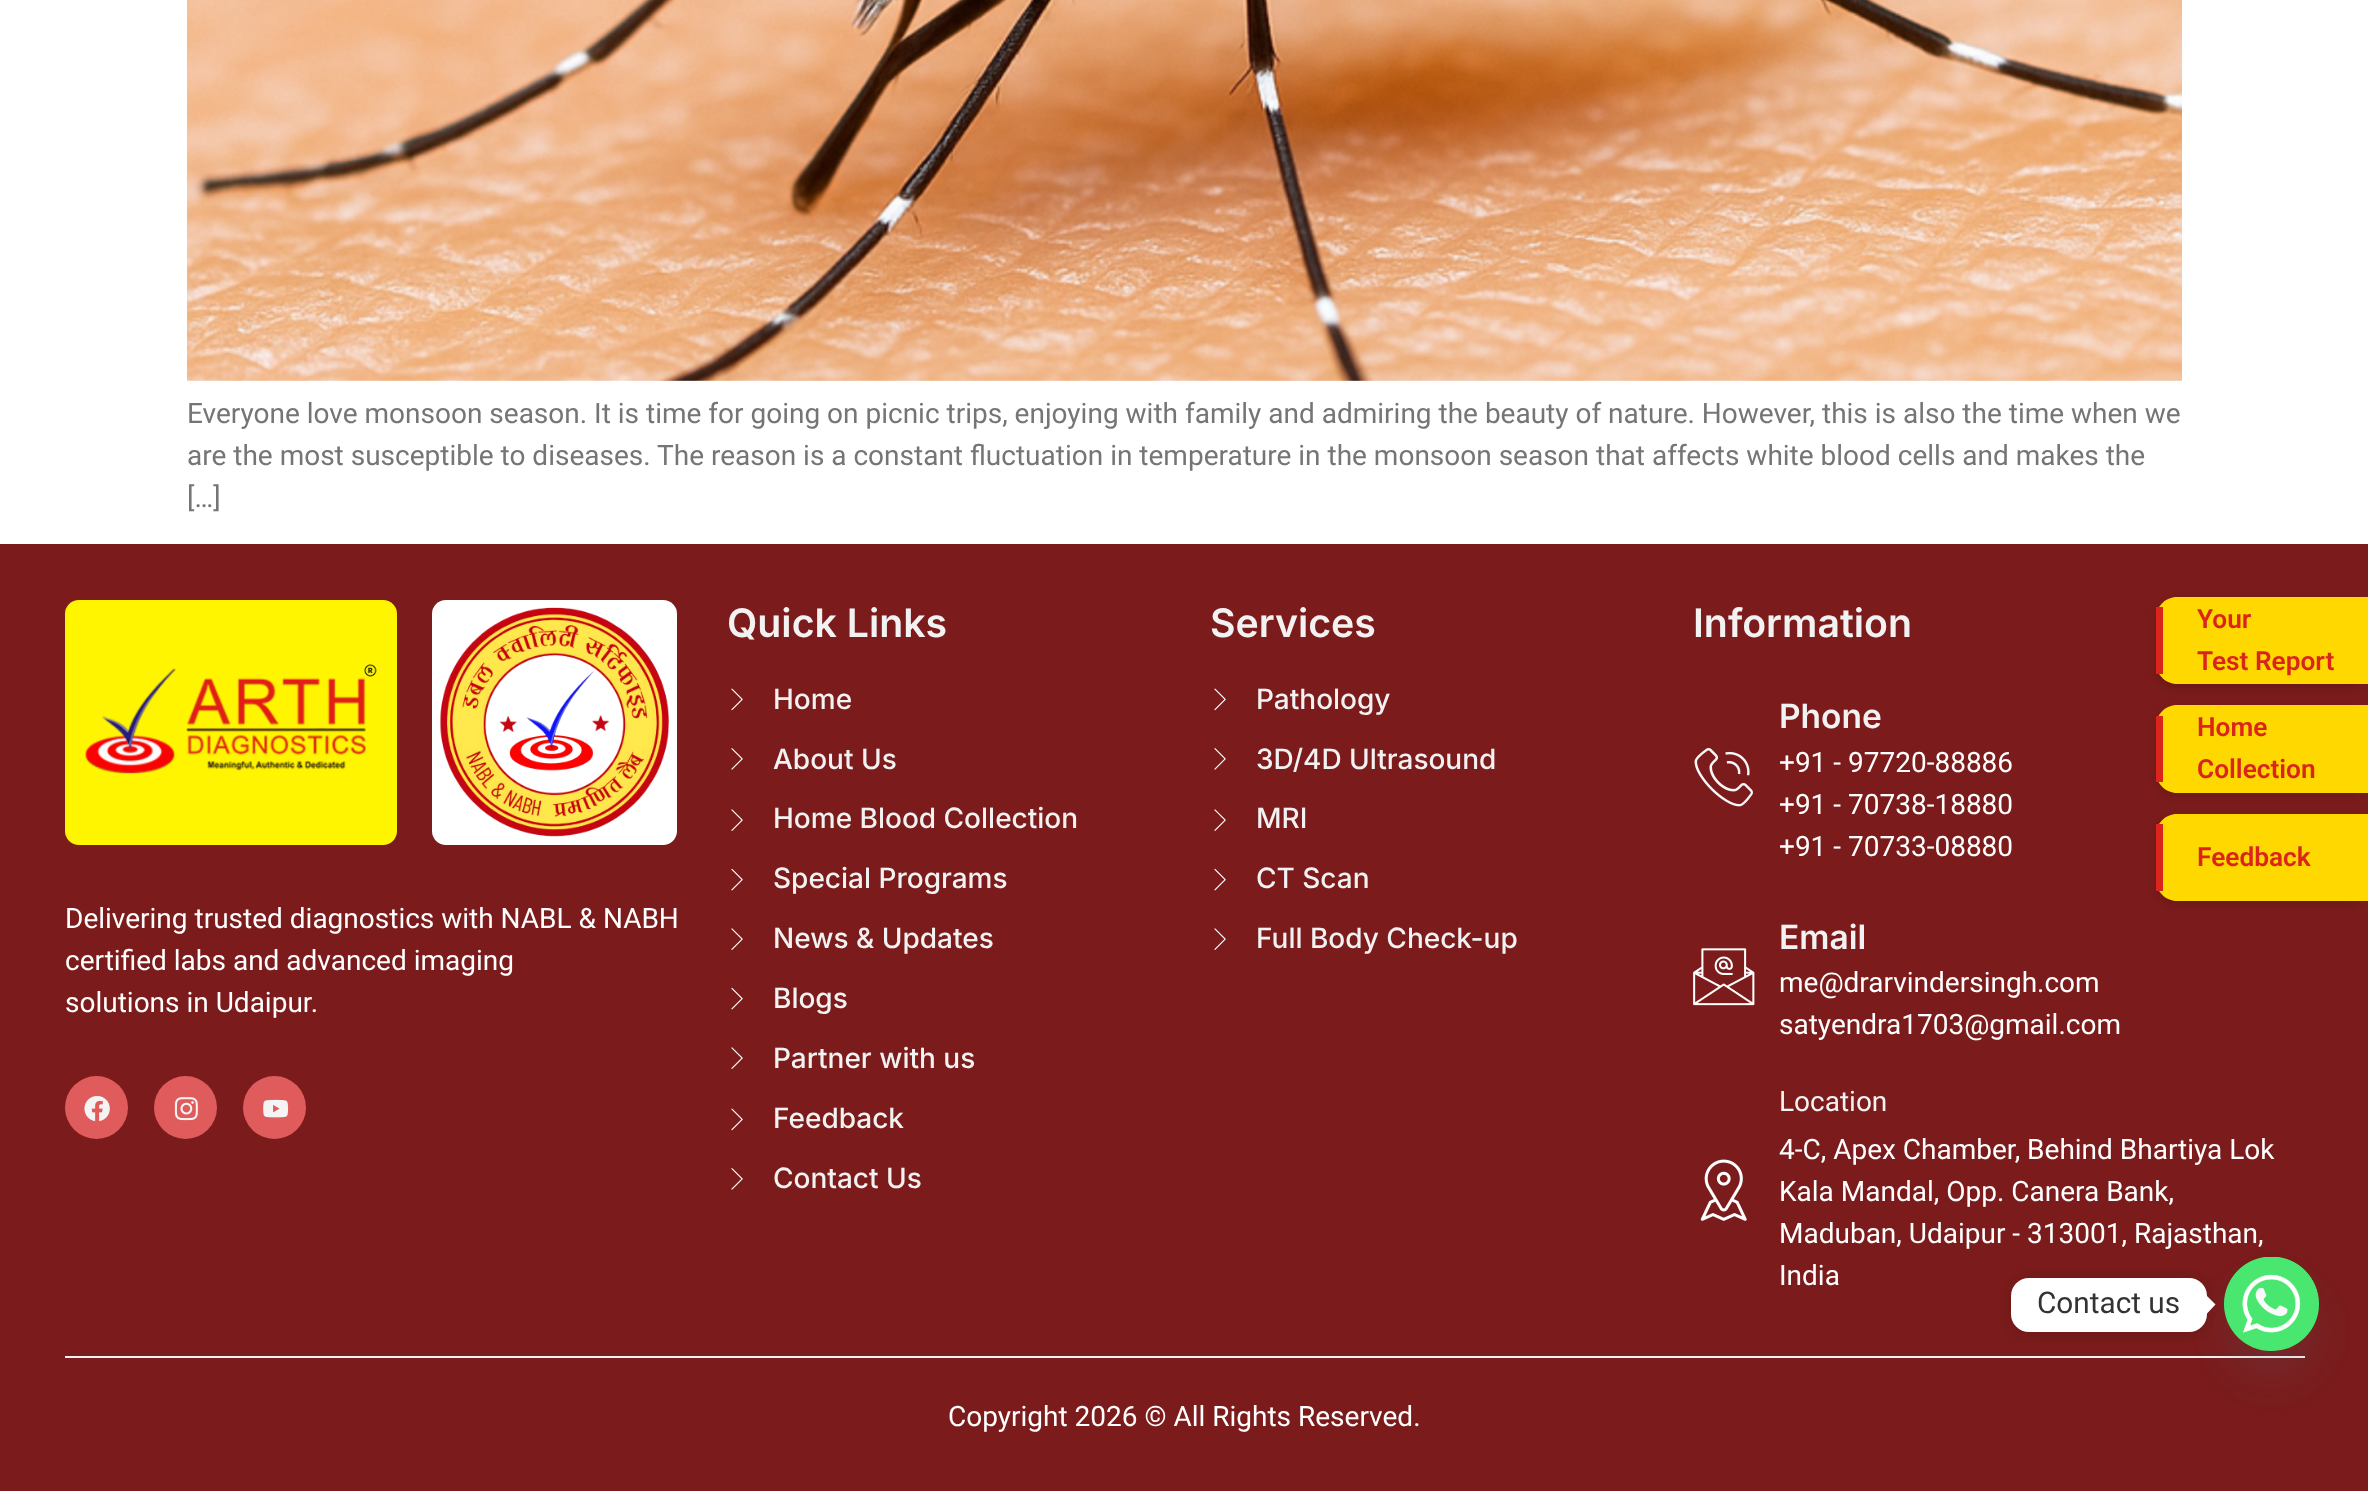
<?xml version="1.0" encoding="UTF-8"?>
<svg xmlns="http://www.w3.org/2000/svg" width="2368" height="1491">
    <defs>
        <filter id="blur1" x="-50%" y="-200%" width="200%" height="500%"><feGaussianBlur stdDeviation="5"/></filter>
        <filter id="blur2" x="-50%" y="-200%" width="200%" height="500%"><feGaussianBlur stdDeviation="21"/></filter>
        <clipPath id="clip1"><path d="M 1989 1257 H 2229 V 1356 H 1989 Z M 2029 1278 H 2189 C 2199 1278 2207 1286 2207 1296 V 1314 C 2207 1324 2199 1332 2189 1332 H 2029 C 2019 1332 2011 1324 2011 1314 V 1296 C 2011 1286 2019 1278 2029 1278 Z" clip-rule="evenodd"/></clipPath>
        <filter id="blur3" x="-50%" y="-200%" width="200%" height="500%"><feGaussianBlur stdDeviation="7"/></filter>
    </defs>
    <rect width="100%" height="100%" fill="#FFFFFF"/>
    <image x="187" y="0" width="1995" height="381" href="img_01.png"/>
    <text font-family="Roboto" font-size="28" fill="#757575">
        <tspan x="187" y="423">Everyone love monsoon season. It is time for going on picnic trips, enjoying with family and admiring the beauty of nature. However, this is also the time when we</tspan>
        <tspan x="187" y="465">are the most susceptible to diseases. The reason is a constant fluctuation in temperature in the monsoon season that affects white blood cells and makes the</tspan>
        <tspan x="187" y="507">[…]</tspan>
    </text>
    <rect x="0" y="544" width="2368" height="947" fill="#7B1B1B"/>
    <rect x="65" y="600" width="332" height="245" rx="14" fill="#FFF500"/>
    <image x="85" y="664" width="292" height="110" href="img_02.png"/>
    <rect x="432" y="600" width="245" height="245" rx="14" fill="#FFFFFF"/>
    <image x="440" y="607" width="229" height="230" href="img_03.png"/>
    <text font-family="Roboto" font-size="28" fill="#FFFFFF">
        <tspan x="65" y="928">Delivering trusted diagnostics with NABL &amp; NABH</tspan>
        <tspan x="65" y="970">certified labs and advanced imaging</tspan>
        <tspan x="65" y="1012">solutions in Udaipur.</tspan>
    </text>
    <circle cx="96.5" cy="1107.5" r="31.5" fill="#E05C5C"/>
    <image x="84" y="1096" width="26" height="26" href="img_04.png"/>
    <circle cx="185.5" cy="1107.5" r="31.5" fill="#E05C5C"/>
    <image x="174" y="1097" width="24" height="24" href="img_05.png"/>
    <circle cx="274.5" cy="1107.5" r="31.5" fill="#E05C5C"/>
    <image x="263" y="1099" width="26" height="19" href="img_06.png"/>
    <text x="727" y="637" font-family="Inter" font-size="39.25" font-weight="600" fill="#F2F2F2">Quick Links</text>
    <image x="731" y="688" width="12" height="23" href="img_07.png"/>
    <text x="773" y="709" font-family="Inter" font-size="28" font-weight="500" fill="#F2F2F2">Home</text>
    <image x="731" y="748" width="12" height="22" href="img_08.png"/>
    <text x="773" y="769" font-family="Inter" font-size="28" font-weight="500" fill="#F2F2F2">About Us</text>
    <image x="731" y="809" width="12" height="22" href="img_09.png"/>
    <text x="773" y="828" font-family="Inter" font-size="28" font-weight="500" fill="#F2F2F2">Home Blood Collection</text>
    <image x="731" y="868" width="12" height="23" href="img_10.png"/>
    <text x="773" y="888" font-family="Inter" font-size="28" font-weight="500" fill="#F2F2F2">Special Programs</text>
    <image x="731" y="928" width="12" height="22" href="img_09.png"/>
    <text x="773" y="948" font-family="Inter" font-size="28" font-weight="500" fill="#F2F2F2">News &amp; Updates</text>
    <image x="731" y="987" width="12" height="23" href="img_10.png"/>
    <text x="773" y="1008" font-family="Inter" font-size="28" font-weight="500" fill="#F2F2F2">Blogs</text>
    <image x="731" y="1047" width="12" height="22" href="img_09.png"/>
    <text x="773" y="1068" font-family="Inter" font-size="28" font-weight="500" fill="#F2F2F2">Partner with us</text>
    <image x="731" y="1108" width="12" height="23" href="img_07.png"/>
    <text x="773" y="1128" font-family="Inter" font-size="28" font-weight="500" fill="#F2F2F2">Feedback</text>
    <image x="731" y="1168" width="12" height="22" href="img_08.png"/>
    <text x="773" y="1188" font-family="Inter" font-size="28" font-weight="500" fill="#F2F2F2">Contact Us</text>
    <text x="1210" y="637" font-family="Inter" font-size="39.25" font-weight="600" fill="#F2F2F2">Services</text>
    <image x="1214" y="688" width="12" height="23" href="img_07.png"/>
    <text x="1256" y="709" font-family="Inter" font-size="28" font-weight="500" fill="#F2F2F2">Pathology</text>
    <image x="1214" y="748" width="12" height="22" href="img_08.png"/>
    <text x="1256" y="769" font-family="Inter" font-size="28" font-weight="500" fill="#F2F2F2">3D/4D Ultrasound</text>
    <image x="1214" y="809" width="12" height="22" href="img_09.png"/>
    <text x="1256" y="828" font-family="Inter" font-size="28" font-weight="500" fill="#F2F2F2">MRI</text>
    <image x="1214" y="868" width="12" height="23" href="img_10.png"/>
    <text x="1256" y="888" font-family="Inter" font-size="28" font-weight="500" fill="#F2F2F2">CT Scan</text>
    <image x="1214" y="928" width="12" height="22" href="img_09.png"/>
    <text x="1256" y="948" font-family="Inter" font-size="28" font-weight="500" fill="#F2F2F2">Full Body Check-up</text>
    <text x="1693" y="637" font-family="Inter" font-size="39.25" font-weight="600" fill="#F2F2F2">Information</text>
    <image x="1694" y="748" width="59" height="59" href="img_11.png"/>
    <text x="1779" y="728" font-family="Inter" font-size="33.5" font-weight="600" fill="#F2F2F2">Phone</text>
    <text font-family="Roboto" font-size="28" fill="#FFFFFF">
        <tspan x="1779" y="772">+91 - 97720-88886</tspan>
        <tspan x="1779" y="814">+91 - 70738-18880</tspan>
        <tspan x="1779" y="856">+91 - 70733-08880</tspan>
    </text>
    <image x="1693" y="948" width="62" height="58" href="img_12.png"/>
    <text x="1779" y="949" font-family="Inter" font-size="33.5" font-weight="600" fill="#F2F2F2">Email</text>
    <text font-family="Roboto" font-size="28" fill="#FFFFFF">
        <tspan x="1779" y="992">me@drarvindersingh.com</tspan>
        <tspan x="1779" y="1034">satyendra1703@gmail.com</tspan>
    </text>
    <image x="1700" y="1159" width="47" height="62" href="img_13.png"/>
    <text x="1779" y="1111" font-family="Roboto" font-size="28" fill="#F2F2F2">Location</text>
    <text font-family="Roboto" font-size="28" fill="#FFFFFF">
        <tspan x="1779" y="1159">4-C, Apex Chamber, Behind Bhartiya Lok</tspan>
        <tspan x="1779" y="1201">Kala Mandal, Opp. Canera Bank,</tspan>
        <tspan x="1779" y="1243">Maduban, Udaipur - 313001, Rajasthan,</tspan>
        <tspan x="1779" y="1285">India</tspan>
    </text>
    <rect x="2156" y="600" width="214" height="88" rx="21" fill="#000000" fill-opacity="0.15" filter="url(#blur1)"/>
    <path d="M 2177 597 H 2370 V 684 H 2177 C 2165.5 684 2156 674.5 2156 663 V 618 C 2156 606.5 2165.5 597 2177 597 Z" fill="#FFD800"/>
    <rect x="2156" y="607" width="7" height="67" fill="#DA251D"/>
    <text font-family="Roboto" font-size="26.25" font-weight="600" fill="#DA251D">
        <tspan x="2197" y="628">Your</tspan>
        <tspan x="2197" y="670">Test Report</tspan>
    </text>
    <rect x="2156" y="709" width="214" height="87" rx="21" fill="#000000" fill-opacity="0.15" filter="url(#blur1)"/>
    <path d="M 2177 705 H 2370 V 793 H 2177 C 2165.5 793 2156 783.5 2156 772 V 726 C 2156 714.5 2165.5 705 2177 705 Z" fill="#FFD800"/>
    <rect x="2156" y="716" width="7" height="66" fill="#DA251D"/>
    <text font-family="Roboto" font-size="26.25" font-weight="600" fill="#DA251D">
        <tspan x="2197" y="736">Home</tspan>
        <tspan x="2197" y="778">Collection</tspan>
    </text>
    <rect x="2156" y="817" width="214" height="88" rx="21" fill="#000000" fill-opacity="0.15" filter="url(#blur1)"/>
    <path d="M 2177 814 H 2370 V 901 H 2177 C 2165.5 901 2156 891.5 2156 880 V 835 C 2156 823.5 2165.5 814 2177 814 Z" fill="#FFD800"/>
    <rect x="2156" y="824" width="7" height="67" fill="#DA251D"/>
    <text x="2197" y="866" font-family="Roboto" font-size="26.25" font-weight="600" fill="#DA251D">Feedback</text>
    <rect x="65" y="1356" width="2240" height="2" fill="#F2F2F2"/>
    <text x="948" y="1426" font-family="Roboto" font-size="28" fill="#FFFFFF">Copyright 2026 © All Rights Reserved.</text>
    <rect x="2224" y="1285" width="95" height="94" rx="47" fill="#49687E" fill-opacity="0.16" filter="url(#blur2)"/>
    <rect x="2224" y="1257" width="95" height="94" rx="47" fill="#49E670"/>
    <image x="2224" y="1257" width="95" height="94" href="img_14.png"/>
    <g clip-path="url(#clip1)">
        <rect x="2011" y="1279" width="196" height="55" rx="18" fill="#000000" fill-opacity="0.15" filter="url(#blur3)"/>
    </g>
    <rect x="2011" y="1278" width="196" height="54" rx="18" fill="#FFFFFF"/>
    <text x="2037" y="1313" font-family="Roboto" font-size="29.75" fill="#333333">Contact us</text>
    <path d="M 2207 1313.5 V 1296 L 2215.5 1304.5 Z" fill="#FFFFFF"/>
</svg>
